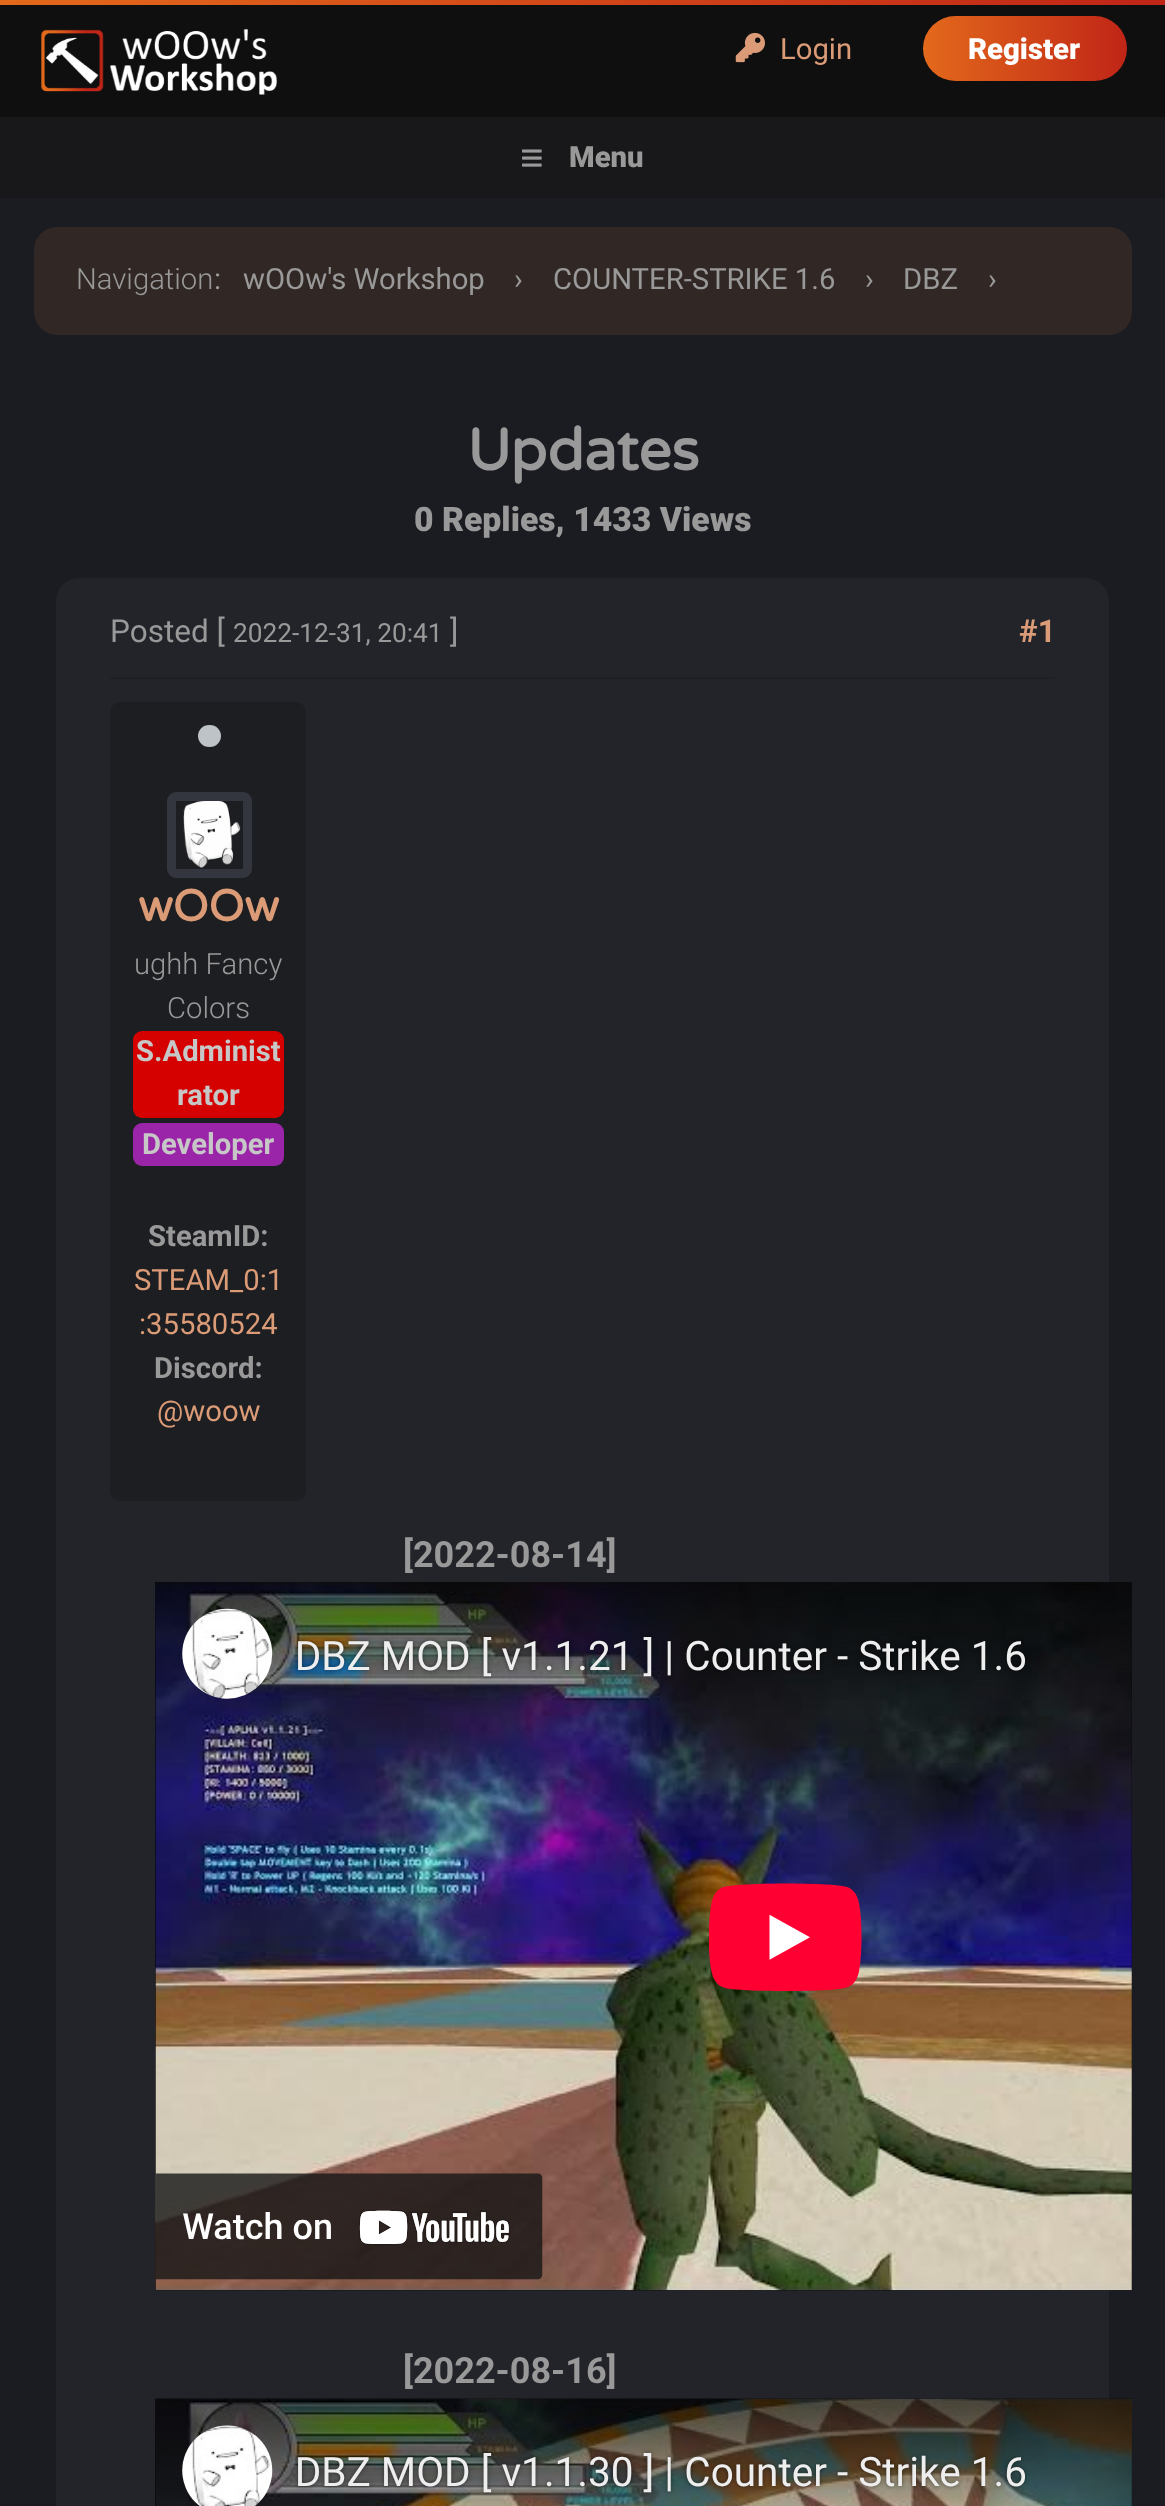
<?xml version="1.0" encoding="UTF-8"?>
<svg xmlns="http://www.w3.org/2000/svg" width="1165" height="2506">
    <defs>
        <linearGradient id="g1" gradientUnits="userSpaceOnUse" x1="0" y1="2.3" x2="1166" y2="2.2"><stop offset="0" stop-color="#E3691B"/><stop offset="1" stop-color="#C02517"/></linearGradient>
        <linearGradient id="g2" gradientUnits="userSpaceOnUse" x1="923" y1="48" x2="1127" y2="48"><stop offset="0" stop-color="#E3691B"/><stop offset="1" stop-color="#C02517"/></linearGradient>
    </defs>
    <rect width="100%" height="100%" fill="#1B1C22"/>
    <rect x="0" y="0" width="1165" height="5" fill="url(#g1)"/>
    <rect x="0" y="5" width="1165" height="112" fill="#0F0F10"/>
    <image x="41" y="29" width="237" height="66" href="img_01.png"/>
    <image x="735" y="32" width="30" height="31" href="img_02.png"/>
    <text x="780" y="59" font-family="Roboto" font-size="29.25" fill="#DA9B76">Login</text>
    <rect x="923" y="16" width="204" height="65" rx="32.5" fill="url(#g2)"/>
    <text x="968" y="59" font-family="Roboto" font-size="29.25" font-weight="900" fill="#FFFFFF">Register</text>
    <rect x="0" y="117" width="1165" height="81" fill="#18181A"/>
    <image x="522" y="149" width="20" height="18" href="img_03.png"/>
    <text x="569" y="167" font-family="Roboto" font-size="29.25" font-weight="900" fill="#999999">Menu</text>
    <rect x="34" y="227" width="1098" height="108" rx="23" fill="#312825"/>
    <text x="76" y="289" font-family="Roboto" font-size="29.25" font-weight="300" fill="#999999">Navigation</text>
    <text x="214" y="289" font-family="Roboto" font-size="29.25" fill="#999999">:</text>
    <text x="243" y="289" font-family="Roboto" font-size="29.25" fill="#999999">wOOw's Workshop</text>
    <text x="514" y="289" font-family="Roboto" font-size="29.25" fill="#999999">›</text>
    <text x="553" y="289" font-family="Roboto" font-size="29.25" fill="#999999">COUNTER-STRIKE 1.6</text>
    <text x="865" y="289" font-family="Roboto" font-size="29.25" fill="#999999">›</text>
    <text x="903" y="289" font-family="Roboto" font-size="29.25" fill="#999999">DBZ</text>
    <text x="988" y="289" font-family="Roboto" font-size="29.25" fill="#999999">›</text>
    <text x="467" y="470" font-family="Varela Round" font-size="58.5" font-weight="700" fill="#999999">Updates</text>
    <text x="414" y="531" font-family="Roboto" font-size="33.75" font-weight="900" fill="#999999">0 Replies, 1433 Views</text>
    <rect x="56" y="578" width="1053" height="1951" rx="23" fill="#23242A"/>
    <text x="110" y="642" font-family="Roboto" font-size="31.5" fill="#999999">Posted [</text>
    <text x="233" y="642" font-family="Roboto" font-size="26.25" fill="#999999">2022-12-31, 20:41</text>
    <text x="450" y="642" font-family="Roboto" font-size="31.5" fill="#999999">]</text>
    <text x="1019" y="642" font-family="Roboto" font-size="31.5" font-weight="700" fill="#DA9B76">#1</text>
    <rect x="110" y="677" width="945" height="2" fill="#1E1F24"/>
    <rect x="110" y="702" width="196" height="799" rx="11" fill="#1D1E22"/>
    <rect x="198" y="725" width="23" height="22" rx="11" fill="#BDC3C7"/>
    <rect x="171.5" y="796.5" width="76" height="77" rx="4.5" fill="none" stroke="#34363F" stroke-width="9"/>
    <image x="183" y="801" width="58" height="67" href="img_04.png"/>
    <text x="138" y="921" font-family="Varela Round" font-size="44" font-weight="700" fill="#DA9B76">wOOw</text>
    <text x="134" y="974" font-family="Roboto" font-size="29.25" font-weight="300" fill="#999999">ughh Fancy</text>
    <text x="167" y="1018" font-family="Roboto" font-size="29.25" font-weight="300" fill="#999999">Colors</text>
    <rect x="133" y="1031" width="151" height="87" rx="9" fill="#D50000"/>
    <text x="136" y="1061" font-family="Roboto" font-size="29.25" font-weight="700" fill="#C7C7C7">S.Administ</text>
    <text x="177" y="1105" font-family="Roboto" font-size="29.25" font-weight="700" fill="#C7C7C7">rator</text>
    <rect x="133" y="1123" width="151" height="43" rx="9" fill="#9A25A8"/>
    <text x="142" y="1154" font-family="Roboto" font-size="29.25" font-weight="700" fill="#C7C7C7">Developer</text>
    <text x="148" y="1246" font-family="Roboto" font-size="29.25" font-weight="700" fill="#999999">SteamID:</text>
    <text x="134" y="1290" font-family="Roboto" font-size="29.25" fill="#DA9B76">STEAM_0:1</text>
    <text x="139" y="1334" font-family="Roboto" font-size="29.25" fill="#DA9B76">:35580524</text>
    <text x="154" y="1378" font-family="Roboto" font-size="29.25" font-weight="700" fill="#999999">Discord:</text>
    <text x="157" y="1421" font-family="Roboto" font-size="29.25" fill="#DA9B76">@woow</text>
    <text x="403" y="1567" font-family="Roboto" font-size="36" font-weight="700" fill="#999999">[2022-08-14]</text>
    <image x="155" y="1582" width="977" height="709" href="img_05.png"/>
    <text x="403" y="2383" font-family="Roboto" font-size="36" font-weight="700" fill="#999999">[2022-08-16]</text>
    <image x="155" y="2398" width="977" height="108" href="img_06.png"/>
</svg>
